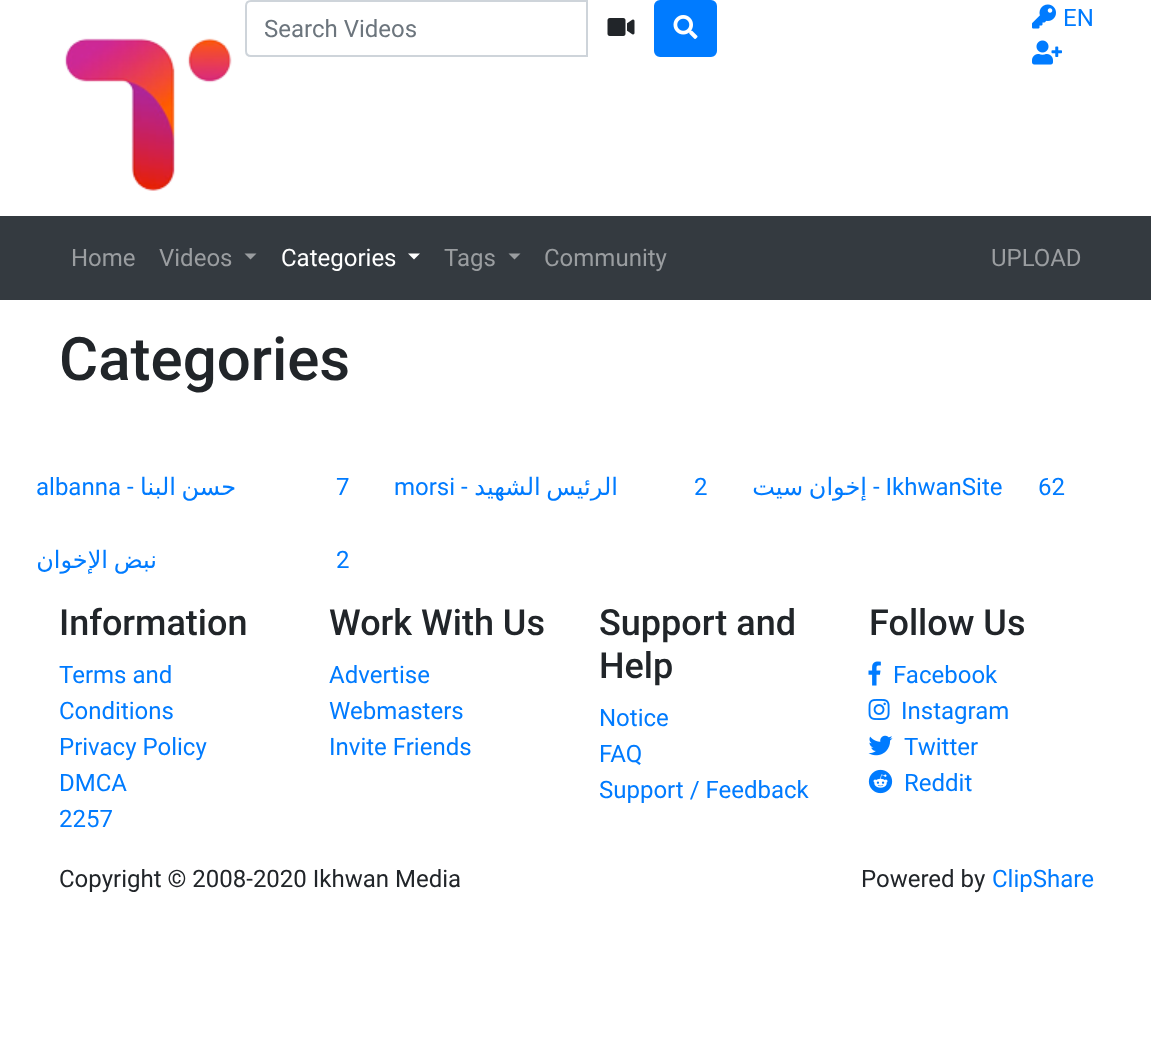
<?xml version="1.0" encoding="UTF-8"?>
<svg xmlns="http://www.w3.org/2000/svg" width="1151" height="1063">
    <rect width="100%" height="100%" fill="#FFFFFF"/>
    <image x="1032" y="4" width="24" height="25" href="img_01.png"/>
    <image x="1032" y="40" width="30" height="25" href="img_02.png"/>
    <text x="1063" y="26" font-family="Roboto" font-size="24" fill="#007BFF">EN</text>
    <path d="M 251 1 H 587 V 56 H 251 C 248 56 246 54 246 51 V 6 C 246 3 248 1 251 1 Z" fill="none" stroke="#CED4DA" stroke-width="2"/>
    <text x="264" y="37" font-family="Roboto" font-size="24" fill="#6C757D">Search Videos</text>
    <image x="607" y="18" width="28" height="18" href="img_03.png"/>
    <rect x="655" y="1" width="61" height="55" rx="5" fill="#007BFF" stroke="#007BFF" stroke-width="2"/>
    <image x="673" y="15" width="25" height="24" href="img_04.png"/>
    <image x="64" y="38" width="168" height="153" href="img_05.png"/>
    <rect x="0" y="216" width="1151" height="84" fill="#343A40"/>
    <text x="71" y="266" font-family="Roboto" font-size="24" fill="#9A9DA0">Home</text>
    <text x="159" y="266" font-family="Roboto" font-size="24" fill="#9A9DA0">Videos</text>
    <path d="M 244.5 253.5 H 256.5 L 250.5 259.5 Z" fill="#9A9DA0"/>
    <text x="281" y="266" font-family="Roboto" font-size="24" fill="#FFFFFF">Categories</text>
    <path d="M 408 253.5 H 420 L 414 259.5 Z" fill="#FFFFFF"/>
    <text x="444" y="266" font-family="Roboto" font-size="24" fill="#9A9DA0">Tags</text>
    <path d="M 508.5 253.5 H 520.5 L 514.5 259.5 Z" fill="#9A9DA0"/>
    <text x="544" y="266" font-family="Roboto" font-size="24" fill="#9A9DA0">Community</text>
    <text x="991" y="266" font-family="Roboto" font-size="24" fill="#9A9DA0">UPLOAD</text>
    <text x="59" y="380" font-family="Roboto" font-size="60" font-weight="500" fill="#212529">Categories</text>
    <text x="36" y="495" font-family="Roboto" font-size="24" fill="#007BFF">albanna -</text>
    <text x="236" y="495" word-spacing="-2" font-family="DejaVu Sans" font-size="24" direction="rtl" fill="#007BFF">حسن البنا</text>
    <text x="336" y="495" font-family="Roboto" font-size="24" fill="#007BFF">7</text>
    <text x="394" y="495" font-family="Roboto" font-size="24" fill="#007BFF">morsi -</text>
    <text x="618" y="495" word-spacing="-2" font-family="DejaVu Sans" font-size="24" direction="rtl" fill="#007BFF">الرئيس الشهيد</text>
    <text x="694" y="495" font-family="Roboto" font-size="24" fill="#007BFF">2</text>
    <text x="867" y="495" word-spacing="-2" font-family="DejaVu Sans" font-size="24" direction="rtl" fill="#007BFF">إخوان سيت</text>
    <text x="873" y="495" font-family="Roboto" font-size="24" fill="#007BFF">- IkhwanSite</text>
    <text x="1038" y="495" font-family="Roboto" font-size="24" fill="#007BFF">62</text>
    <text x="157" y="568" word-spacing="-2" font-family="DejaVu Sans" font-size="24" direction="rtl" fill="#007BFF">نبض الإخوان</text>
    <text x="336" y="568" font-family="Roboto" font-size="24" fill="#007BFF">2</text>
    <text x="59" y="635" font-family="Roboto" font-size="36" font-weight="500" fill="#212529">Information</text>
    <text font-family="Roboto" font-size="24" fill="#007BFF">
        <tspan x="59" y="683">Terms and</tspan>
        <tspan x="59" y="719">Conditions</tspan>
        <tspan x="59" y="755">Privacy Policy</tspan>
        <tspan x="59" y="791">DMCA</tspan>
        <tspan x="59" y="827">2257</tspan>
    </text>
    <text x="329" y="635" font-family="Roboto" font-size="36" font-weight="500" fill="#212529">Work With Us</text>
    <text font-family="Roboto" font-size="24" fill="#007BFF">
        <tspan x="329" y="683">Advertise</tspan>
        <tspan x="329" y="719">Webmasters</tspan>
        <tspan x="329" y="755">Invite Friends</tspan>
    </text>
    <text font-family="Roboto" font-size="36" font-weight="500" fill="#212529">
        <tspan x="599" y="635">Support and</tspan>
        <tspan x="599" y="678">Help</tspan>
    </text>
    <text font-family="Roboto" font-size="24" fill="#007BFF">
        <tspan x="599" y="726">Notice</tspan>
        <tspan x="599" y="762">FAQ</tspan>
        <tspan x="599" y="798">Support / Feedback</tspan>
    </text>
    <text x="869" y="635" font-family="Roboto" font-size="36" font-weight="500" fill="#212529">Follow Us</text>
    <image x="868" y="661" width="13" height="25" href="img_06.png"/>
    <text x="893" y="683" font-family="Roboto" font-size="24" fill="#007BFF">Facebook</text>
    <image x="868" y="699" width="22" height="21" href="img_07.png"/>
    <text x="901" y="719" font-family="Roboto" font-size="24" fill="#007BFF">Instagram</text>
    <image x="868" y="735" width="25" height="21" href="img_08.png"/>
    <text x="904" y="755" font-family="Roboto" font-size="24" fill="#007BFF">Twitter</text>
    <image x="868" y="769" width="25" height="25" href="img_09.png"/>
    <text x="904" y="791" font-family="Roboto" font-size="24" fill="#007BFF">Reddit</text>
    <text x="59" y="887" font-family="Roboto" font-size="24" fill="#212529">Copyright © 2008-2020 Ikhwan Media</text>
    <text x="861" y="887" font-family="Roboto" font-size="24" fill="#212529">Powered by</text>
    <text x="992" y="887" font-family="Roboto" font-size="24" fill="#007BFF">ClipShare</text>
</svg>
